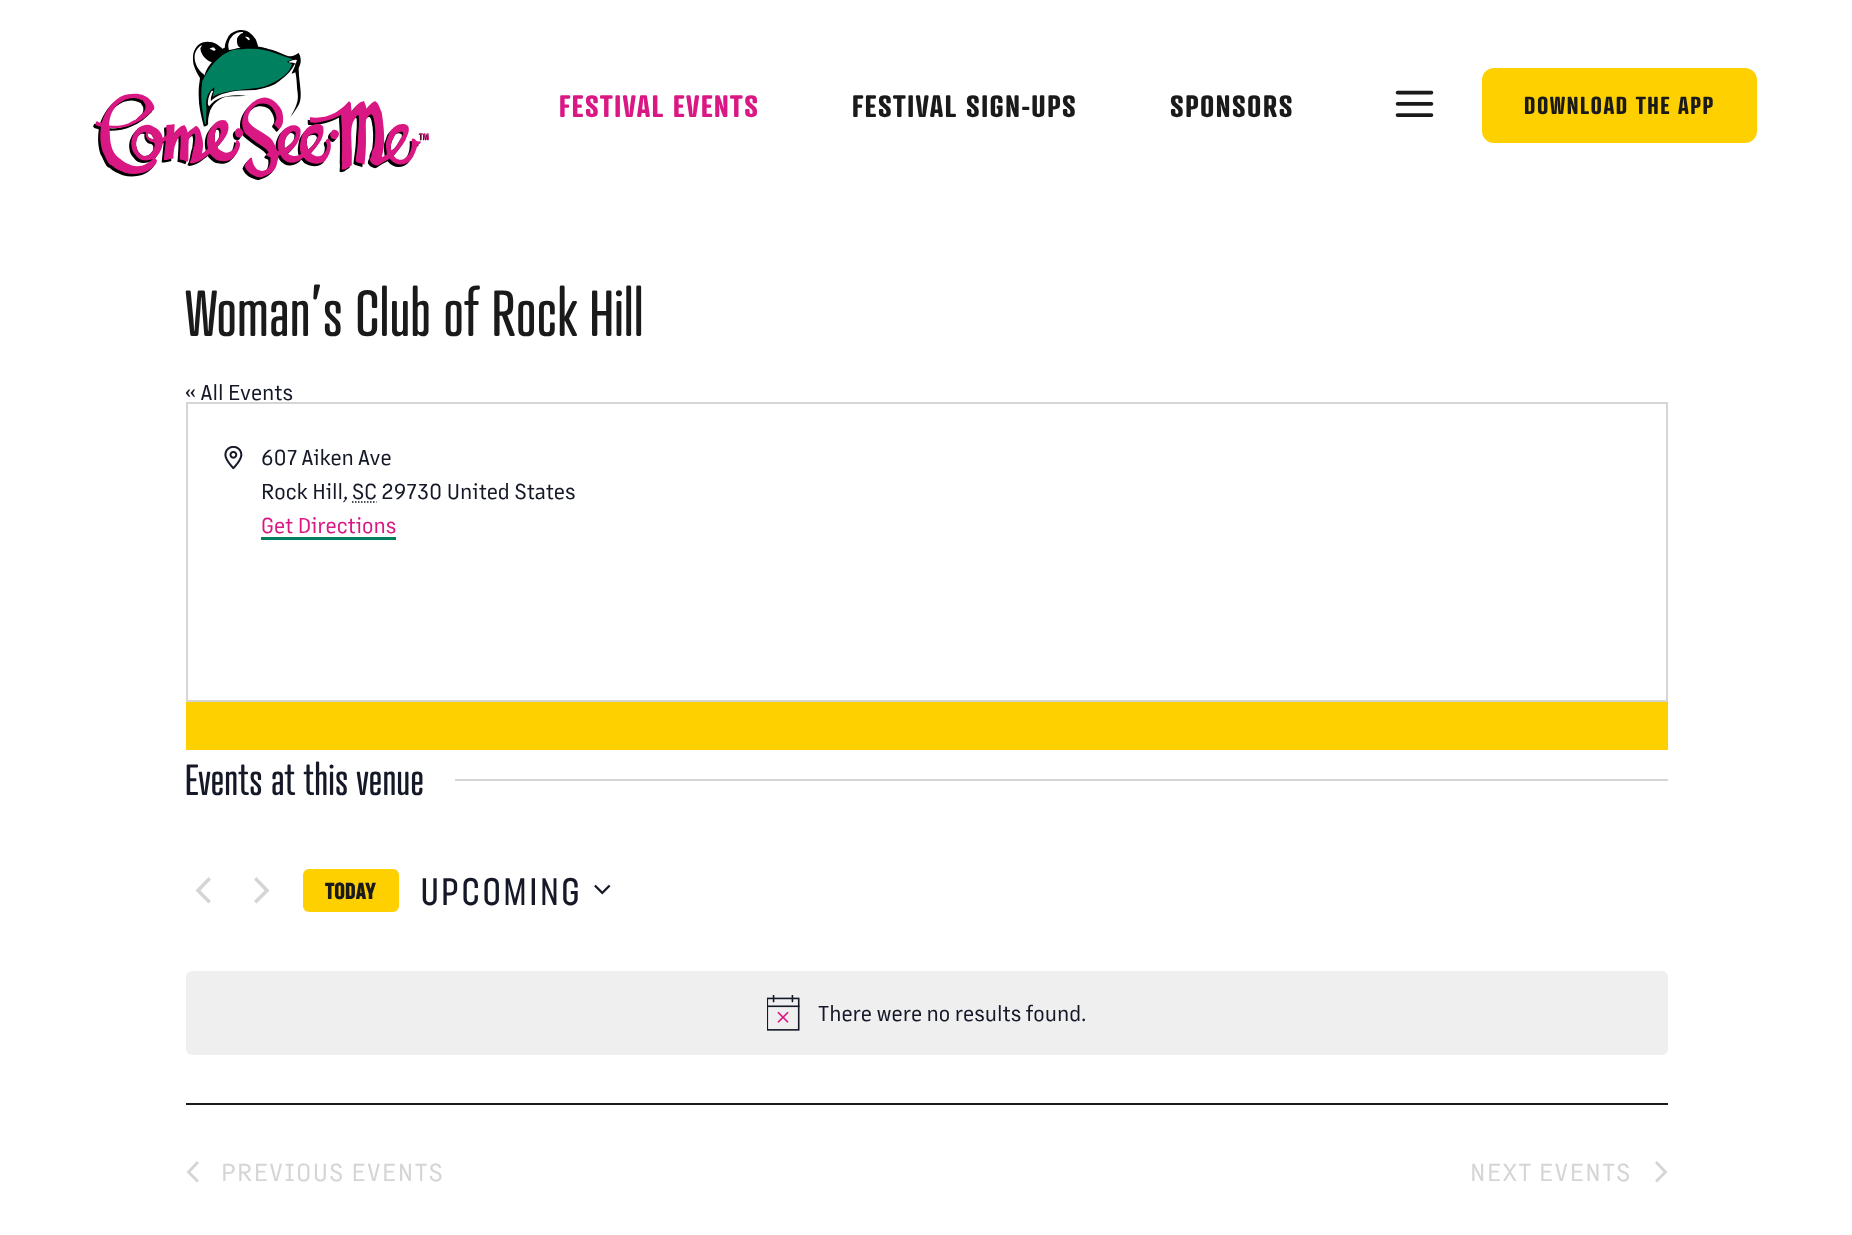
<?xml version="1.0" encoding="UTF-8"?>
<svg xmlns="http://www.w3.org/2000/svg" width="1852" height="1235">
    <rect width="100%" height="100%" fill="#FFFFFF"/>
    <text x="559" y="117" font-family="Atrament" font-size="30" font-weight="700" letter-spacing="1.5" fill="#DA1884">FESTIVAL EVENTS</text>
    <text x="852" y="117" font-family="Atrament" font-size="30" font-weight="700" letter-spacing="1.5" fill="#1A1A1A">FESTIVAL SIGN-UPS</text>
    <text x="1170" y="117" font-family="Atrament" font-size="30" font-weight="700" letter-spacing="1.5" fill="#1A1A1A">SPONSORS</text>
    <image x="93" y="30" width="336" height="150" href="img_01.png"/>
    <image x="1395" y="90" width="39" height="27" href="img_02.png"/>
    <rect x="1480.5" y="66.5" width="278" height="78" rx="13.5" fill="#FFD000" stroke="#FFFFFF" stroke-width="3"/>
    <text x="1524" y="114" font-family="Atrament" font-size="24" font-weight="700" letter-spacing="1.5" fill="#1A1A1A">DOWNLOAD THE APP</text>
    <text x="185" y="336" font-family="Atrament" font-size="63" fill="#1A1A1A">Woman’s Club of Rock Hill</text>
    <text x="185" y="400" font-family="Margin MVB" font-size="21" fill="#141827">« All Events</text>
    <rect x="186" y="702" width="1482" height="48" fill="#FFD000"/>
    <rect x="187" y="403" width="1480" height="298" fill="none" stroke="#D5D5D5" stroke-width="2"/>
    <image x="224" y="446" width="19" height="24" href="img_03.png"/>
    <text font-family="Margin MVB" font-size="21" fill="#141827">
        <tspan x="261" y="465">607 Aiken Ave</tspan>
        <tspan x="261" y="499">Rock Hill,</tspan>
    </text>
    <text x="352" y="499" font-family="Margin MVB" font-size="21" fill="#141827">SC 29730 United States</text>
    <path d="M 352 502 H 376.5" fill="none" stroke="#141827" stroke-width="1.5" stroke-dasharray="1.5 1.5"/>
    <text x="261" y="533" font-family="Margin MVB" font-size="21" fill="#DA1884">Get Directions</text>
    <rect x="261" y="537" width="135" height="3" fill="#00805E"/>
    <text x="185" y="795" font-family="Atrament" font-size="42" fill="#141827">Events at this venue</text>
    <rect x="455" y="779" width="1213" height="2" fill="#D5D5D5"/>
    <path d="M 211 901 L 208.5 903.5 L 195.5 890.5 L 208.5 877 L 211 879.5 L 200.5 890.5 Z" fill="#D5D5D5"/>
    <path d="M 254 879.5 L 256.5 877 L 269.5 890.5 L 256.5 903.5 L 254 901 L 264.5 890.5 Z" fill="#D5D5D5"/>
    <rect x="303" y="869" width="96" height="43" rx="6" fill="#FFD000"/>
    <text x="325" y="899" font-family="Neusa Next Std" font-size="23" font-weight="700" fill="#1A1A1A">TODAY</text>
    <text x="421" y="905" font-family="Neusa Next Std" font-size="38" letter-spacing="3" fill="#141827">UPCOMING</text>
    <image x="594" y="884" width="17" height="11" href="img_04.png"/>
    <rect x="186" y="971" width="1482" height="84" rx="6" fill="#EFEFF0"/>
    <image x="767" y="995" width="33" height="36" href="img_05.png"/>
    <text x="818" y="1021" font-family="Margin MVB" font-size="21" fill="#141827">There were no results found.</text>
    <rect x="186" y="1103" width="1482" height="2" fill="#1A1A1A"/>
    <path d="M 199 1180.5 L 197 1182.5 L 186.5 1172 L 197 1161 L 199 1163 L 190.5 1172 Z" fill="#D5D5D5"/>
    <text x="221" y="1181" font-family="Margin MVB" font-size="24" letter-spacing="1.5" fill="#D5D5D5">PREVIOUS EVENTS</text>
    <text x="1470" y="1181" font-family="Margin MVB" font-size="24" letter-spacing="1.5" fill="#D5D5D5">NEXT EVENTS</text>
    <path d="M 1655 1163 L 1657 1161 L 1667.5 1172 L 1657 1182.5 L 1655 1180.5 L 1663.5 1172 Z" fill="#D5D5D5"/>
</svg>
